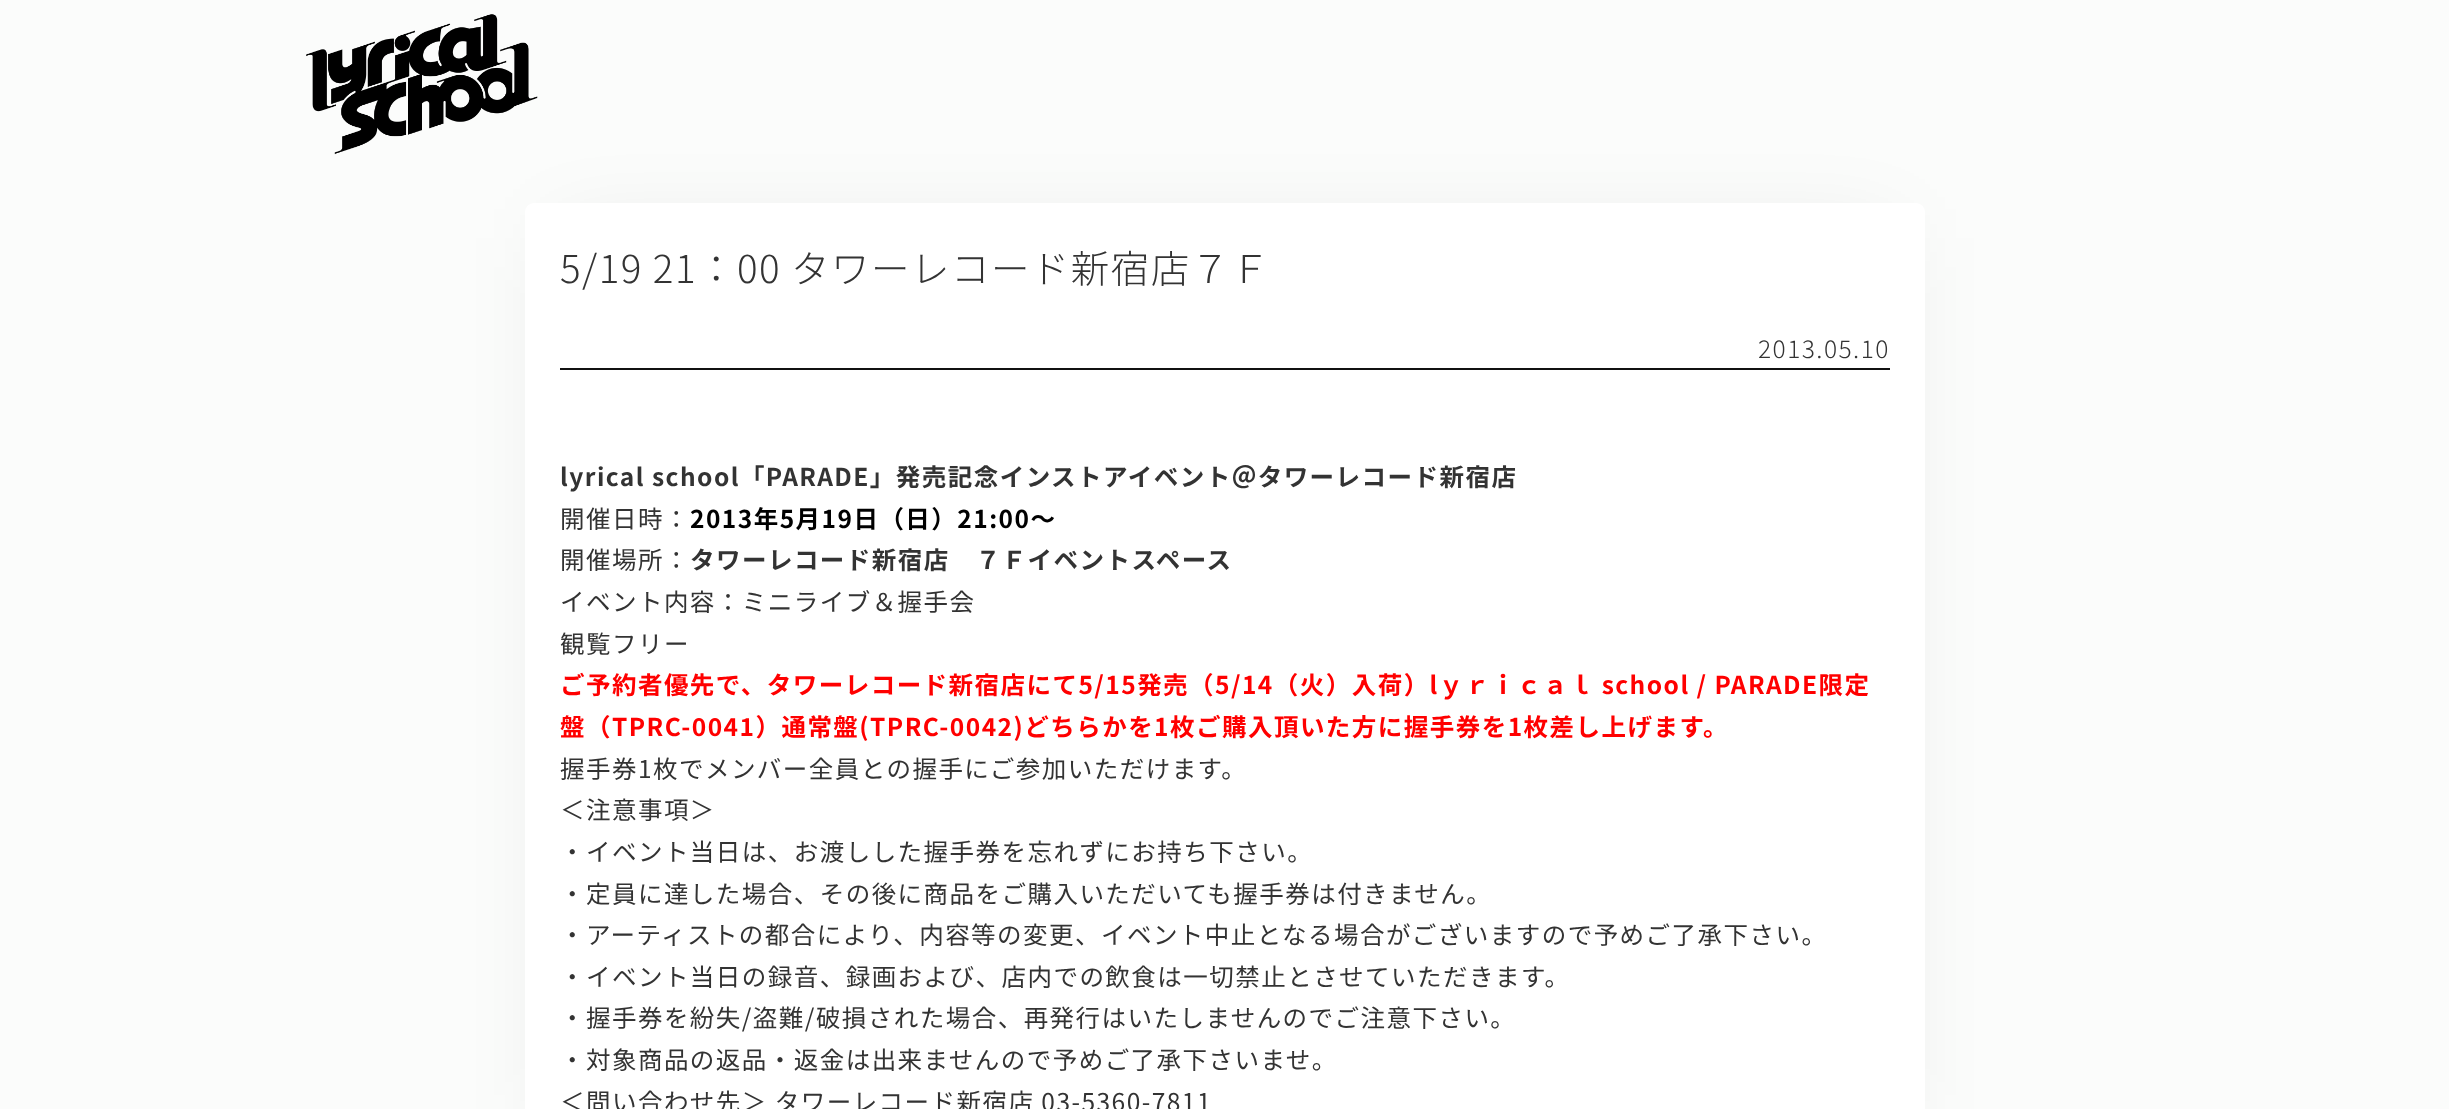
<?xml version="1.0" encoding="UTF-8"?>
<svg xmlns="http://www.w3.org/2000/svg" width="2449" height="1109">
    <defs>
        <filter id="blur1" x="-50%" y="-200%" width="200%" height="500%"><feGaussianBlur stdDeviation="44"/></filter>
    </defs>
    <rect width="100%" height="100%" fill="#FBFCFB"/>
    <image x="306" y="14" width="232" height="141" href="img_01.png"/>
    <rect x="560" y="238" width="1330" height="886" fill="#000000" fill-opacity="0.1" filter="url(#blur1)"/>
    <rect x="525" y="203" width="1400" height="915" rx="9" fill="#FFFFFF"/>
    <text x="560" y="283" font-family="Noto Sans JP" font-size="38.5" font-weight="300" letter-spacing="1.47" fill="#333333">5/19 21：00 タワーレコード新宿店７Ｆ</text>
    <rect x="560" y="368" width="1330" height="2" fill="#111111"/>
    <text x="1758" y="358" font-family="Noto Sans JP" font-size="24.5" font-weight="300" letter-spacing="1.47" fill="#333333">2013.05.10</text>
    <text x="560" y="486" font-family="Noto Sans JP" font-size="24.5" font-weight="700" letter-spacing="1.47" fill="#333333">lyrical school「PARADE」発売記念インストアイベント＠タワーレコード新宿店</text>
    <text x="560" y="528" font-family="Noto Sans JP" font-size="24.5" letter-spacing="1.47" fill="#333333">開催日時：</text>
    <text x="690" y="528" font-family="Noto Sans JP" font-size="24.5" font-weight="700" letter-spacing="1.47" fill="#000000">2013年5月19日（日）21:00～</text>
    <text x="560" y="569" font-family="Noto Sans JP" font-size="24.5" letter-spacing="1.47" fill="#333333">開催場所：</text>
    <text x="690" y="569" font-family="Noto Sans JP" font-size="24.5" font-weight="700" letter-spacing="1.47" fill="#333333">タワーレコード新宿店　７Ｆイベントスペース</text>
    <text font-family="Noto Sans JP" font-size="24.5" letter-spacing="1.47" fill="#333333">
        <tspan x="560" y="611">イベント内容：ミニライブ＆握手会</tspan>
        <tspan x="560" y="653">観覧フリー</tspan>
    </text>
    <text font-family="Noto Sans JP" font-size="24.5" font-weight="700" letter-spacing="1.47" fill="#FF0000">
        <tspan x="560" y="694">ご予約者優先で、タワーレコード新宿店にて5/15発売（5/14（火）入荷）lｙｒｉｃａｌ school / PARADE限定</tspan>
        <tspan x="560" y="736">盤（TPRC-0041）通常盤(TPRC-0042)どちらかを1枚ご購入頂いた方に握手券を1枚差し上げます。</tspan>
    </text>
    <text font-family="Noto Sans JP" font-size="24.5" letter-spacing="1.47" fill="#333333">
        <tspan x="560" y="778">握手券1枚でメンバー全員との握手にご参加いただけます。</tspan>
        <tspan x="560" y="819">＜注意事項＞</tspan>
        <tspan x="560" y="861">・イベント当日は、お渡しした握手券を忘れずにお持ち下さい。</tspan>
        <tspan x="560" y="903">・定員に達した場合、その後に商品をご購入いただいても握手券は付きません。</tspan>
        <tspan x="560" y="944">・アーティストの都合により、内容等の変更、イベント中止となる場合がございますので予めご了承下さい。</tspan>
        <tspan x="560" y="986">・イベント当日の録音、録画および、店内での飲食は一切禁止とさせていただきます。</tspan>
        <tspan x="560" y="1027">・握手券を紛失/盗難/破損された場合、再発行はいたしませんのでご注意下さい。</tspan>
        <tspan x="560" y="1069">・対象商品の返品・返金は出来ませんので予めご了承下さいませ。</tspan>
        <tspan x="560" y="1111">＜問い合わせ先＞ タワーレコード新宿店 03-5360-7811</tspan>
    </text>
</svg>
